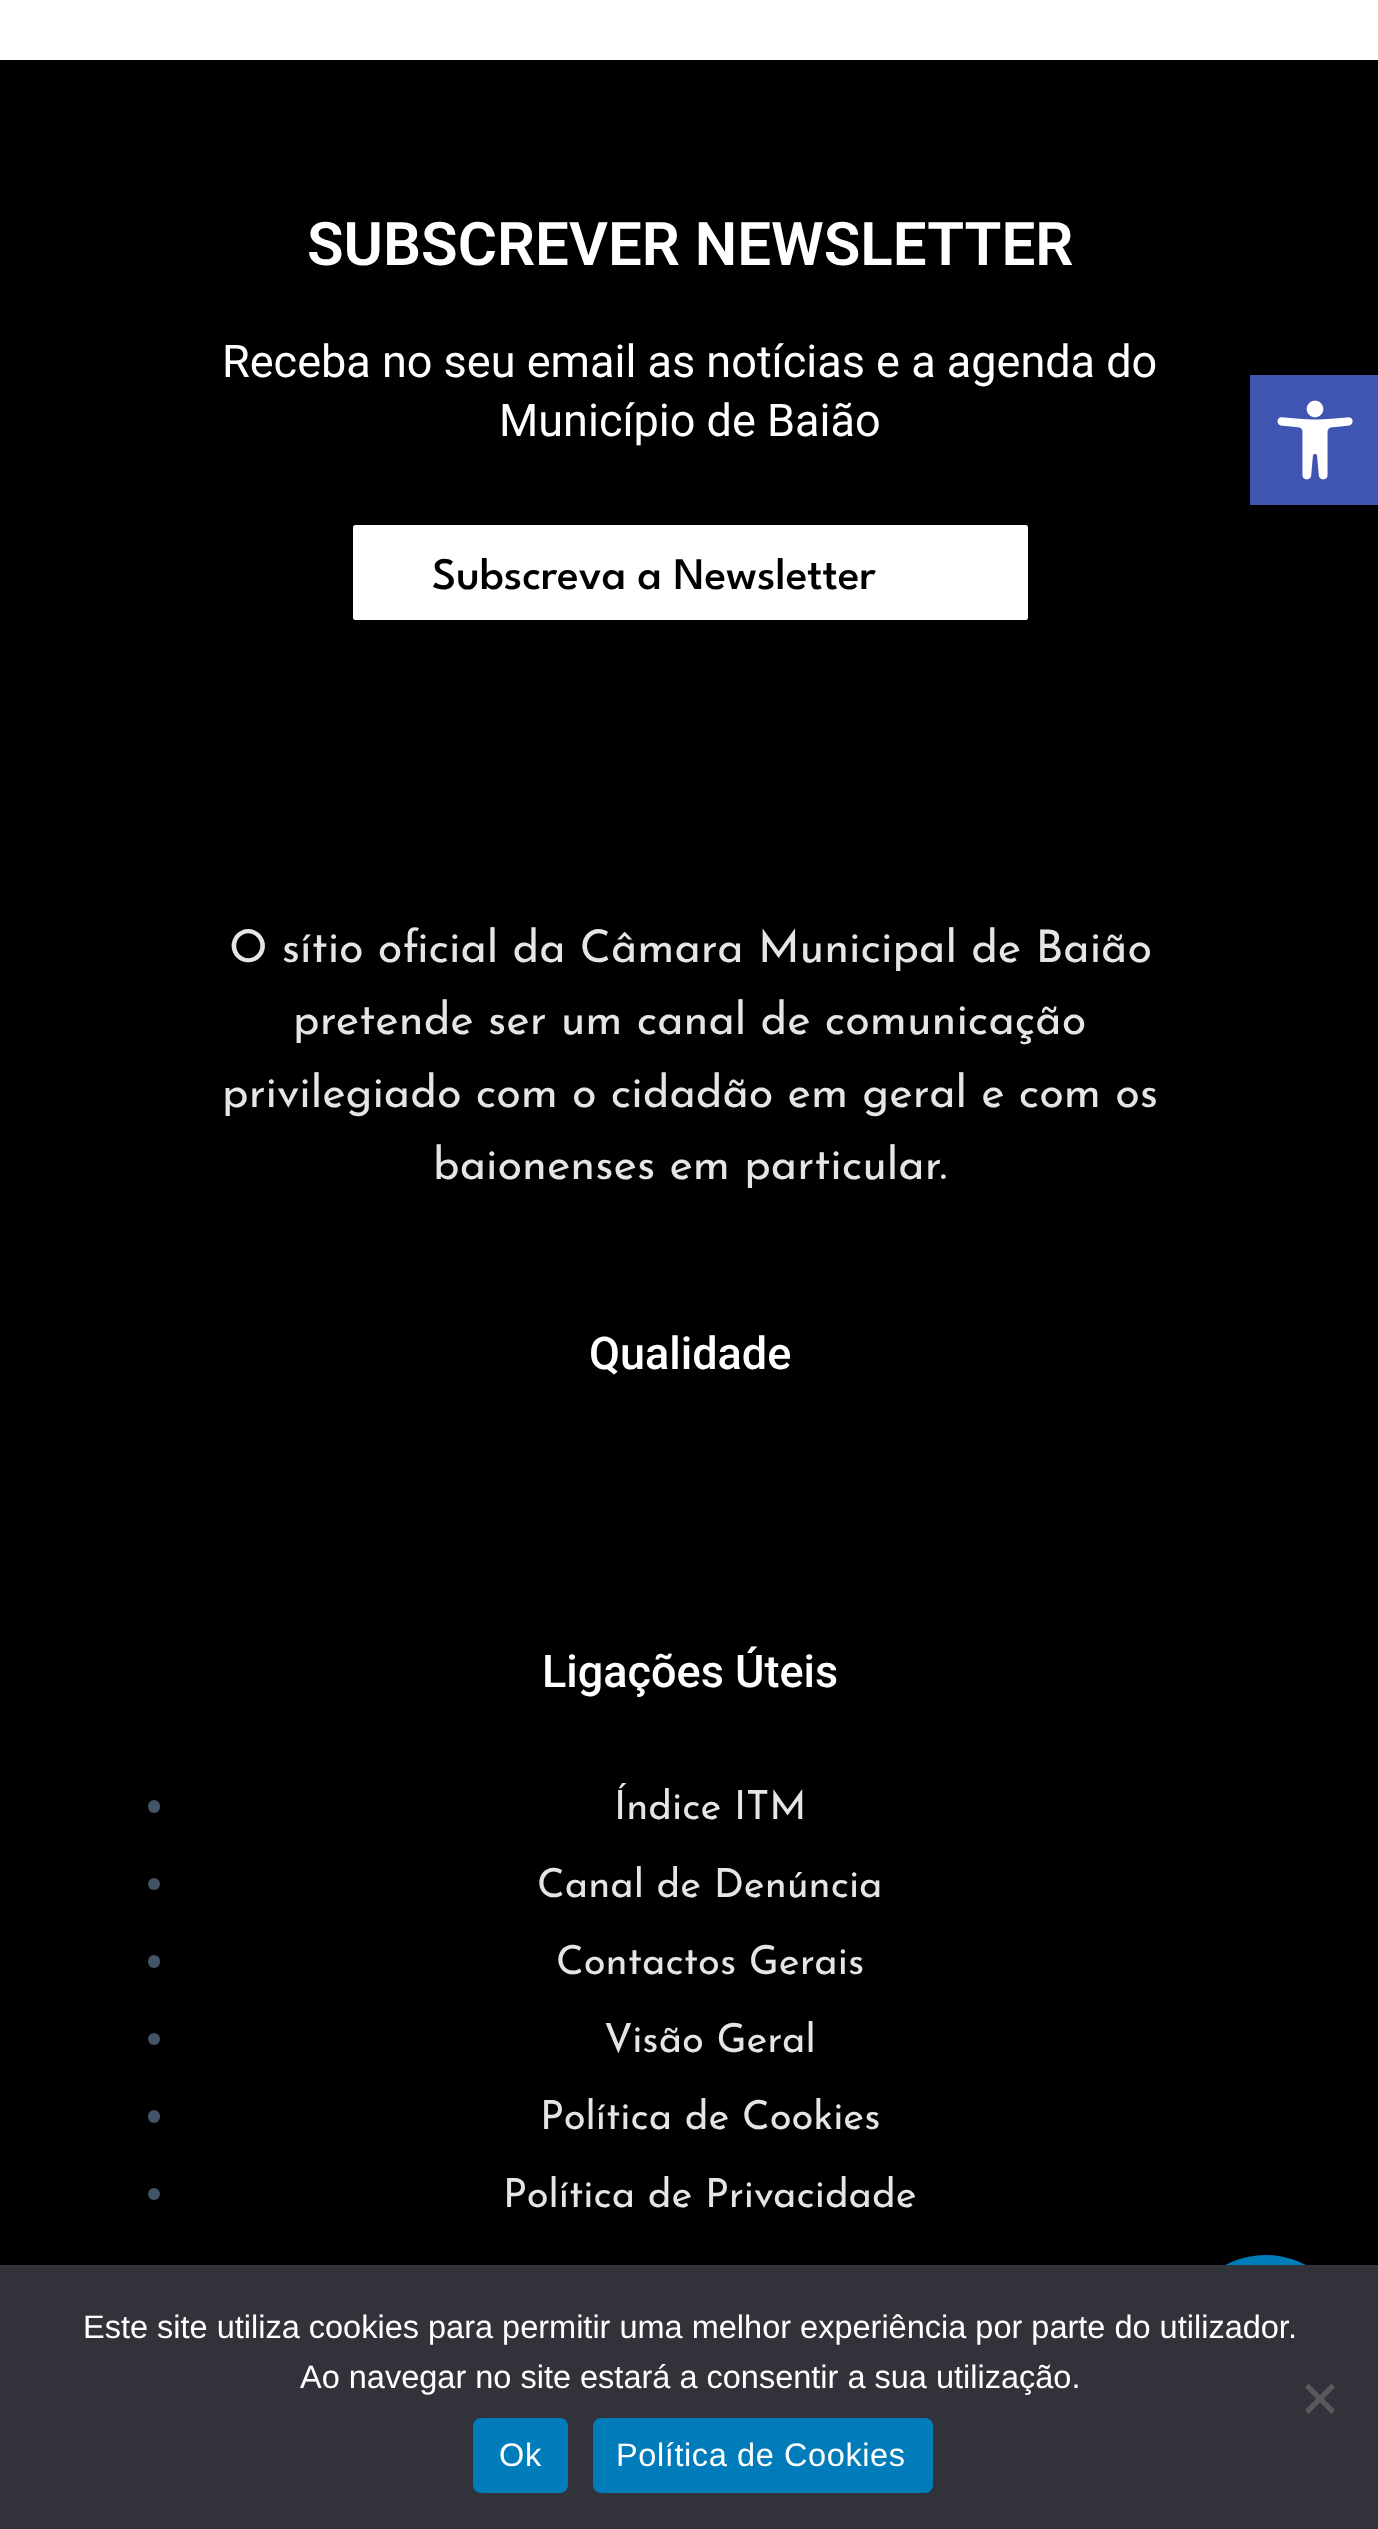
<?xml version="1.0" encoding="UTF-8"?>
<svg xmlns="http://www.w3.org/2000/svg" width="1378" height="2529">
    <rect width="100%" height="100%" fill="#FFFFFF"/>
    <rect x="0" y="60" width="1378" height="2205" fill="#000000"/>
    <text x="307" y="265" font-family="Roboto" font-size="60" font-weight="600" fill="#FFFFFF">SUBSCREVER NEWSLETTER</text>
    <text x="222" y="377" font-family="Roboto" font-size="45" fill="#FFFFFF">Receba no seu email as notícias e a agenda do</text>
    <text x="499" y="436" font-family="Roboto" font-size="45" fill="#FFFFFF">Município de Baião</text>
    <rect x="353" y="525" width="675" height="95" rx="2.5" fill="#FFFFFF"/>
    <text x="432" y="589" font-family="League Spartan" font-size="45" font-weight="500" fill="#000000">Subscreva a Newsletter</text>
    <text x="229" y="962" font-family="Josefin Sans" font-size="45" fill="#E5E5E5">O sítio oficial da Câmara Municipal de Baião</text>
    <text x="293" y="1034" font-family="Josefin Sans" font-size="45" fill="#E5E5E5">pretende ser um canal de comunicação</text>
    <text x="222" y="1107" font-family="Josefin Sans" font-size="45" fill="#E5E5E5">privilegiado com o cidadão em geral e com os</text>
    <text x="433" y="1179" font-family="Josefin Sans" font-size="45" fill="#E5E5E5">baionenses em particular.</text>
    <text x="589" y="1369" font-family="Roboto" font-size="45" font-weight="500" fill="#FFFFFF">Qualidade</text>
    <text x="542" y="1687" font-family="Roboto" font-size="45" font-weight="500" fill="#FFFFFF">Ligações Úteis</text>
    <rect x="148" y="1800" width="12" height="13" rx="6" fill="#425466"/>
    <text x="614" y="1819" font-family="Josefin Sans" font-size="40" fill="#E5E5E5">Índice ITM</text>
    <circle cx="154" cy="1884" r="6" fill="#425466"/>
    <text x="537" y="1897" font-family="Josefin Sans" font-size="40" fill="#E5E5E5">Canal de Denúncia</text>
    <rect x="148" y="1955" width="12" height="13" rx="6" fill="#425466"/>
    <text x="556" y="1974" font-family="Josefin Sans" font-size="40" fill="#E5E5E5">Contactos Gerais</text>
    <circle cx="154" cy="2039" r="6" fill="#425466"/>
    <text x="604" y="2052" font-family="Josefin Sans" font-size="40" fill="#E5E5E5">Visão Geral</text>
    <rect x="148" y="2110" width="12" height="13" rx="6" fill="#425466"/>
    <text x="540" y="2129" font-family="Josefin Sans" font-size="40" fill="#E5E5E5">Política de Cookies</text>
    <circle cx="154" cy="2194" r="6" fill="#425466"/>
    <text x="503" y="2207" font-family="Josefin Sans" font-size="40" fill="#E5E5E5">Política de Privacidade</text>
    <rect x="1250" y="375" width="128" height="130" fill="#4054B2"/>
    <image x="1277" y="400" width="76" height="80" href="img_01.png"/>
    <circle cx="1265.5" cy="2342.5" r="87.5" fill="#007CBA"/>
    <rect x="0" y="2265" width="1378" height="264" fill="#32323A"/>
    <text x="83" y="2338" font-family="Liberation Sans" font-size="32.5" fill="#FFFFFF">Este site utiliza cookies para permitir uma melhor experiência por parte do utilizador.</text>
    <text x="300" y="2388" font-family="Liberation Sans" font-size="32.5" fill="#FFFFFF">Ao navegar no site estará a consentir a sua utilização.</text>
    <path d="M 1331.5 2383.5 L 1335 2387.5 L 1308.5 2414 L 1305 2410 Z" fill="#59595D"/>
    <path d="M 1305 2387.5 L 1308.5 2383.5 L 1335 2410 L 1331.5 2414 Z" fill="#59595D"/>
    <rect x="473" y="2418" width="95" height="75" rx="8" fill="#007CBA"/>
    <text x="499" y="2466" font-family="Liberation Sans" font-size="32.5" letter-spacing="0.6" fill="#FFFFFF">Ok</text>
    <rect x="593" y="2418" width="340" height="75" rx="8" fill="#007CBA"/>
    <text x="616" y="2466" font-family="Liberation Sans" font-size="32.5" letter-spacing="0.6" fill="#FFFFFF">Política de Cookies</text>
</svg>
